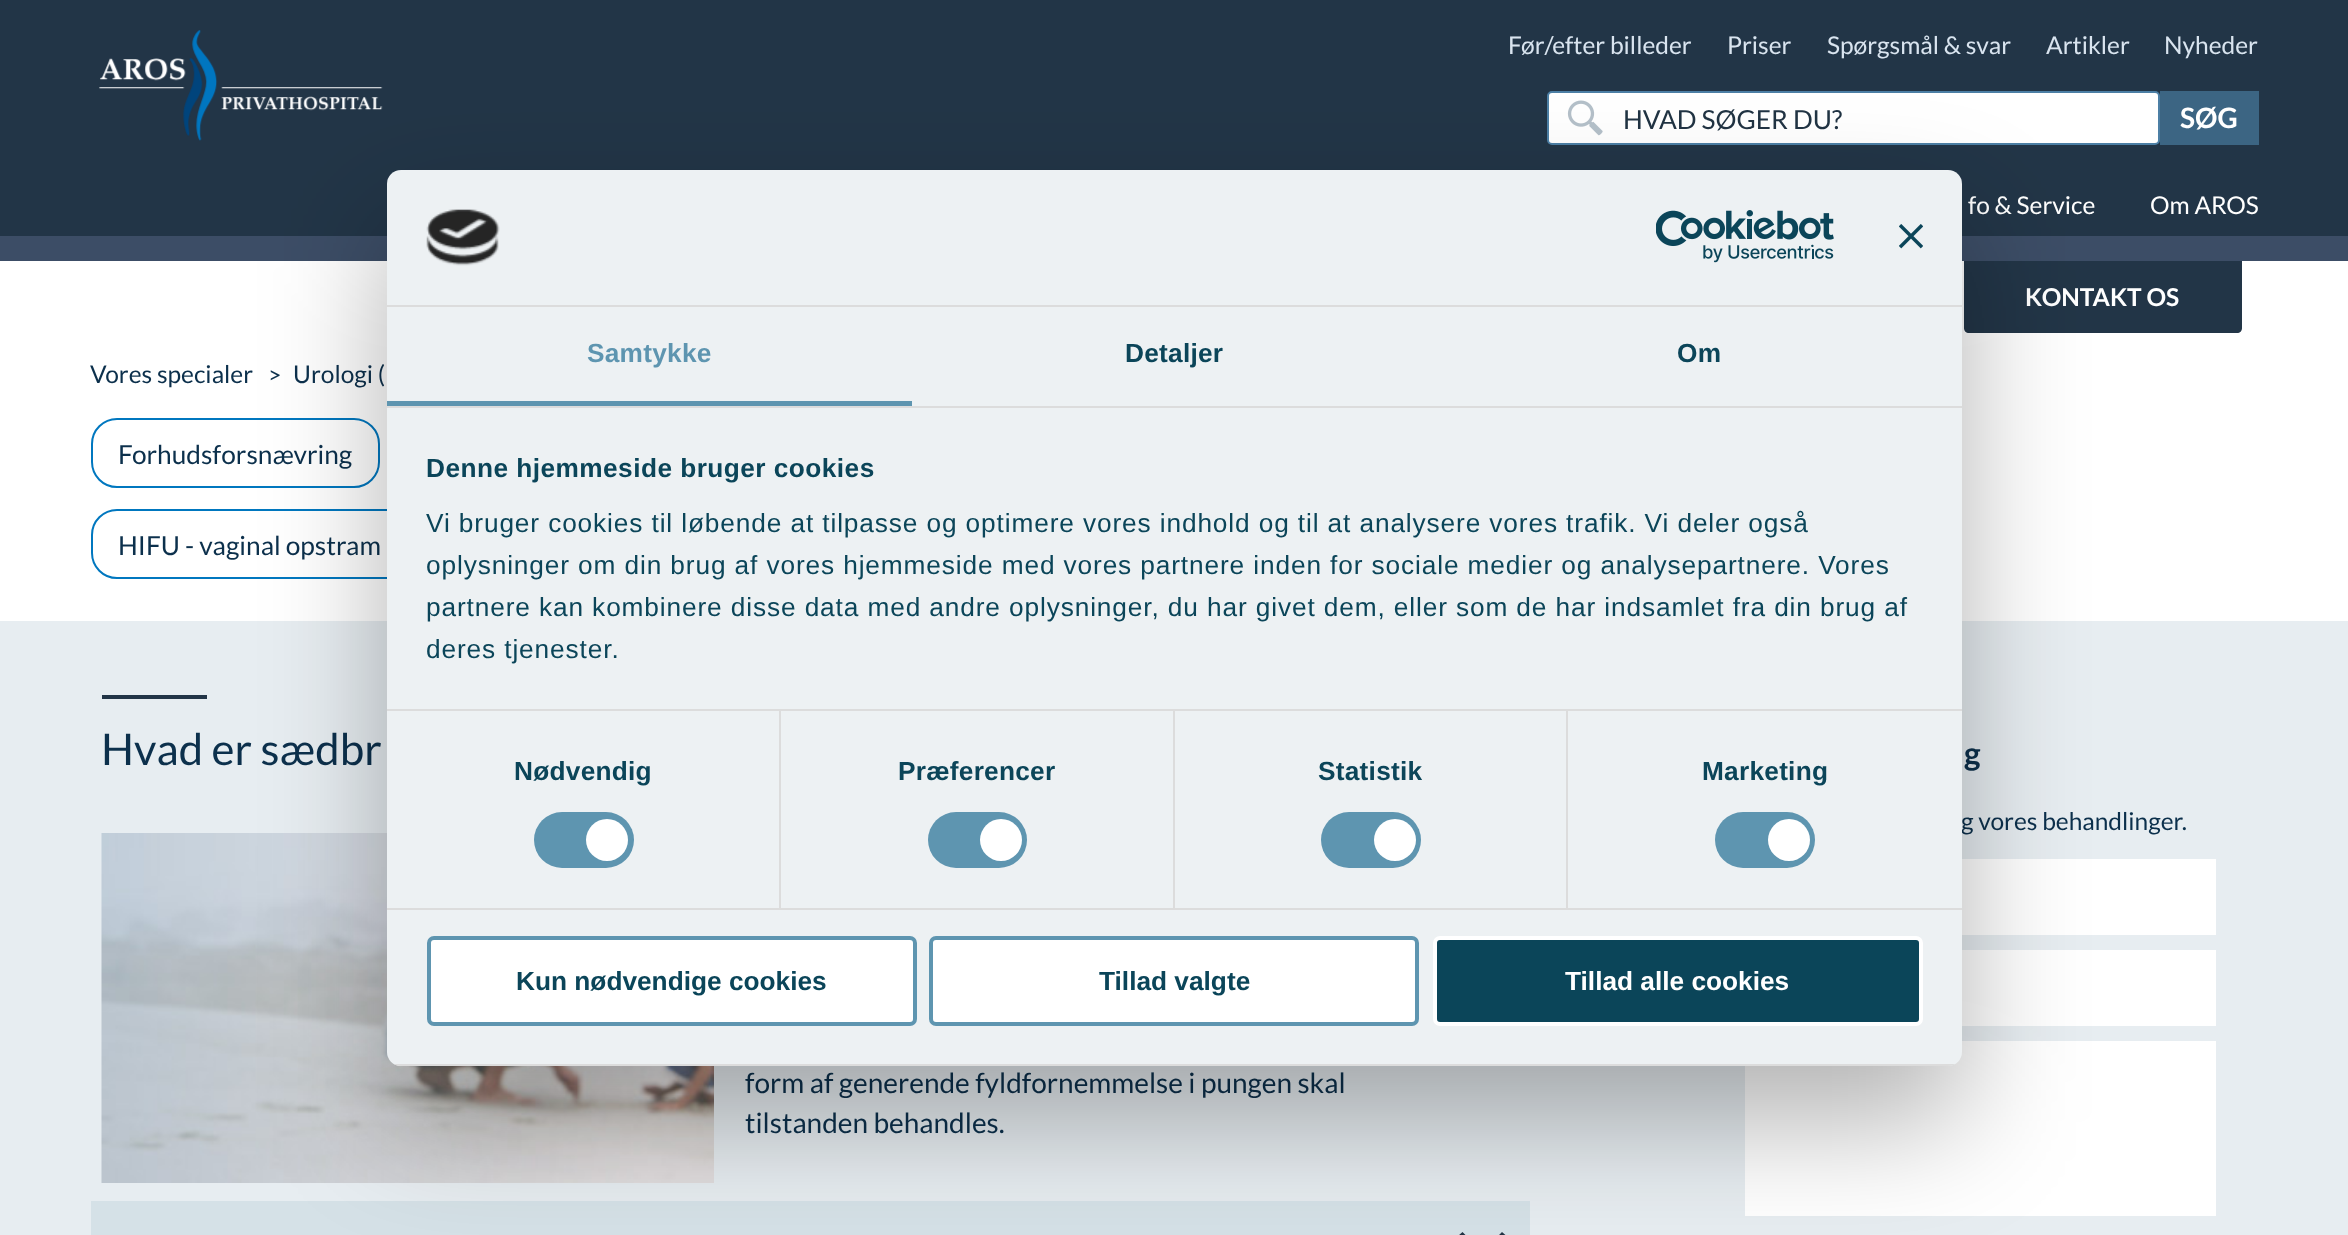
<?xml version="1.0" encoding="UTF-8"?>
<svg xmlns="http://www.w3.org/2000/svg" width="2348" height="1235">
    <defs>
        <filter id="blur1" x="-50%" y="-200%" width="200%" height="500%"><feGaussianBlur stdDeviation="59.5"/></filter>
        <clipPath id="clip1"><rect x="387" y="170" width="1575" height="896" rx="14"/></clipPath>
    </defs>
    <rect width="100%" height="100%" fill="#223547"/>
    <rect x="0" y="261" width="2348" height="360" fill="#FFFFFF"/>
    <image x="99" y="30" width="284" height="111" href="img_01.png"/>
    <text x="1508" y="54" font-family="Lato" font-size="24.5" fill="#D9E4EF">Før/efter billeder</text>
    <text x="1727" y="54" font-family="Lato" font-size="24.5" fill="#D9E4EF">Priser</text>
    <text x="1827" y="54" font-family="Lato" font-size="24.5" fill="#D9E4EF">Spørgsmål &amp; svar</text>
    <text x="2046" y="54" font-family="Lato" font-size="24.5" fill="#D9E4EF">Artikler</text>
    <text x="2164" y="54" font-family="Lato" font-size="24.5" fill="#D9E4EF">Nyheder</text>
    <rect x="1548" y="92" width="611" height="52" rx="4" fill="#FFFFFF" stroke="#4C7FA5" stroke-width="2"/>
    <image x="1567" y="100" width="36" height="36" href="img_02.png"/>
    <text x="1623" y="129" font-family="Lato" font-size="26.25" fill="#203343">HVAD SØGER DU?</text>
    <rect x="2160" y="91" width="99" height="54" fill="#3C6583"/>
    <text x="2180" y="128" font-family="Lato" font-size="28" font-weight="700" fill="#FFFFFF">SØG</text>
    <text x="1968" y="214" font-family="Lato" font-size="24.5" fill="#FFFFFF">fo &amp; Service</text>
    <text x="2150" y="214" font-family="Lato" font-size="24.5" fill="#FFFFFF">Om AROS</text>
    <rect x="0" y="236" width="2348" height="25" fill="#3C4D66"/>
    <path d="M 1964 261 H 2242 V 328 C 2242 331 2240 333 2237 333 H 1969 C 1966 333 1964 331 1964 328 Z" fill="#223547"/>
    <text x="2025" y="306" font-family="Lato" font-size="24.5" font-weight="700" fill="#FFFFFF">KONTAKT OS</text>
    <text x="90" y="383" font-family="Lato" font-size="24.5" fill="#0C304C">Vores specialer</text>
    <text x="268" y="383" font-family="Lato" font-size="23" fill="#0C304C">&gt;</text>
    <text x="293" y="383" font-family="Lato" font-size="24.5" fill="#0C304C">Urologi (</text>
    <rect x="92" y="419" width="287" height="68" rx="25" fill="none" stroke="#0077BF" stroke-width="2"/>
    <text x="118" y="464" font-family="Lato" font-size="26.25" fill="#0C304C">Forhudsforsnævring</text>
    <rect x="92" y="510" width="366" height="68" rx="25" fill="none" stroke="#0077BF" stroke-width="2"/>
    <text x="118" y="555" font-family="Lato" font-size="26.25" fill="#0C304C">HIFU - vaginal opstram</text>
    <rect x="0" y="621" width="2348" height="614" fill="#E7EDF1"/>
    <rect x="102" y="695" width="105" height="4" fill="#223547"/>
    <text x="101" y="765" font-family="Lato" font-size="43.75" fill="#0C304C">Hvad er sædbr</text>
    <image x="101" y="833" width="613" height="350" href="img_03.png"/>
    <text font-family="Lato" font-size="28" fill="#0C304C">
        <tspan x="745" y="1093">form af generende fyldfornemmelse i pungen skal</tspan>
        <tspan x="745" y="1133">tilstanden behandles.</tspan>
    </text>
    <rect x="91" y="1201" width="1439" height="34" fill="#D5E1E7"/>
    <path d="M 1482 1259 L 1458.5 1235.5 L 1462.5 1232 L 1486 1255.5 Z M 1482 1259 L 1478.5 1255.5 L 1502 1232 L 1506 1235.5 Z" fill="#223546"/>
    <text x="1964" y="765" font-family="Lato" font-size="32" font-weight="700" fill="#0C304C">g</text>
    <text x="1961" y="830" font-family="Lato" font-size="24.5" fill="#0C304C">g vores behandlinger.</text>
    <rect x="1962" y="859" width="254" height="76" fill="#FFFFFF"/>
    <rect x="1962" y="950" width="254" height="76" fill="#FFFFFF"/>
    <rect x="1745" y="1041" width="471" height="175" fill="#FFFFFF"/>
    <rect x="387" y="226" width="1575" height="896" rx="14" fill="#000000" fill-opacity="0.3" filter="url(#blur1)"/>
    <rect x="387" y="170" width="1575" height="896" rx="14" fill="#EDF1F3"/>
    <rect x="387" y="305" width="1575" height="2" fill="#DCDCDC"/>
    <image x="426" y="209" width="74" height="57" href="img_04.png"/>
    <image x="1656" y="210" width="178" height="53" href="img_05.png"/>
    <image x="1899" y="224" width="24" height="25" href="img_06.png"/>
    <rect x="387" y="406" width="1575" height="2" fill="#DCDCDC"/>
    <rect x="387" y="401" width="525" height="5" fill="#5E95B0"/>
    <text x="587" y="362" font-family="Liberation Sans" font-size="26.25" font-weight="700" letter-spacing="0.25" fill="#5E95B0">Samtykke</text>
    <text x="1125" y="362" font-family="Liberation Sans" font-size="26.25" font-weight="700" letter-spacing="0.25" fill="#0B4559">Detaljer</text>
    <text x="1677" y="362" font-family="Liberation Sans" font-size="26.25" font-weight="700" letter-spacing="0.25" fill="#0B4559">Om</text>
    <rect x="387" y="709" width="1575" height="2" fill="#DCDCDC"/>
    <text x="426" y="477" font-family="Liberation Sans" font-size="26.25" font-weight="700" letter-spacing="0.45" fill="#0B4559">Denne hjemmeside bruger cookies</text>
    <text font-family="Liberation Sans" font-size="26.25" letter-spacing="0.88" fill="#0B4559">
        <tspan x="426" y="532">Vi bruger cookies til løbende at tilpasse og optimere vores indhold og til at analysere vores trafik. Vi deler også</tspan>
        <tspan x="426" y="574">oplysninger om din brug af vores hjemmeside med vores partnere inden for sociale medier og analysepartnere. Vores</tspan>
        <tspan x="426" y="616">partnere kan kombinere disse data med andre oplysninger, du har givet dem, eller som de har indsamlet fra din brug af</tspan>
        <tspan x="426" y="658">deres tjenester.</tspan>
    </text>
    <rect x="387" y="908" width="1575" height="2" fill="#DCDCDC"/>
    <rect x="779" y="711" width="2" height="197" fill="#DCDCDC"/>
    <text x="514" y="780" font-family="Liberation Sans" font-size="26.25" font-weight="700" letter-spacing="0.25" fill="#0B4559">Nødvendig</text>
    <rect x="534" y="812" width="100" height="56" rx="28" fill="#5E95B0"/>
    <circle cx="607" cy="840" r="21" fill="#FFFFFF"/>
    <rect x="1173" y="711" width="2" height="197" fill="#DCDCDC"/>
    <text x="898" y="780" font-family="Liberation Sans" font-size="26.25" font-weight="700" letter-spacing="0.25" fill="#0B4559">Præferencer</text>
    <rect x="928" y="812" width="99" height="56" rx="28" fill="#5E95B0"/>
    <circle cx="1001" cy="840" r="21" fill="#FFFFFF"/>
    <rect x="1566" y="711" width="2" height="197" fill="#DCDCDC"/>
    <text x="1318" y="780" font-family="Liberation Sans" font-size="26.25" font-weight="700" letter-spacing="0.25" fill="#0B4559">Statistik</text>
    <rect x="1321" y="812" width="100" height="56" rx="28" fill="#5E95B0"/>
    <circle cx="1395" cy="840" r="21" fill="#FFFFFF"/>
    <text x="1702" y="780" font-family="Liberation Sans" font-size="26.25" font-weight="700" letter-spacing="0.25" fill="#0B4559">Marketing</text>
    <rect x="1715" y="812" width="100" height="56" rx="28" fill="#5E95B0"/>
    <circle cx="1789" cy="840" r="21" fill="#FFFFFF"/>
    <g clip-path="url(#clip1)">
        <rect x="387" y="1064" width="1575" height="2" fill="#DCDCDC"/>
    </g>
    <rect x="429" y="938" width="486" height="86" rx="5" fill="#FFFFFF" stroke="#5E95B0" stroke-width="4"/>
    <text x="516" y="990" font-family="Liberation Sans" font-size="26.25" font-weight="700" fill="#0B4559">Kun nødvendige cookies</text>
    <rect x="931" y="938" width="486" height="86" rx="5" fill="#FFFFFF" stroke="#5E95B0" stroke-width="4"/>
    <text x="1099" y="990" font-family="Liberation Sans" font-size="26.25" font-weight="700" fill="#0B4559">Tillad valgte</text>
    <rect x="1435" y="938" width="486" height="86" rx="5" fill="#0B4559" stroke="#FFFFFF" stroke-width="4"/>
    <text x="1565" y="990" font-family="Liberation Sans" font-size="26.25" font-weight="700" fill="#FFFFFF">Tillad alle cookies</text>
</svg>
